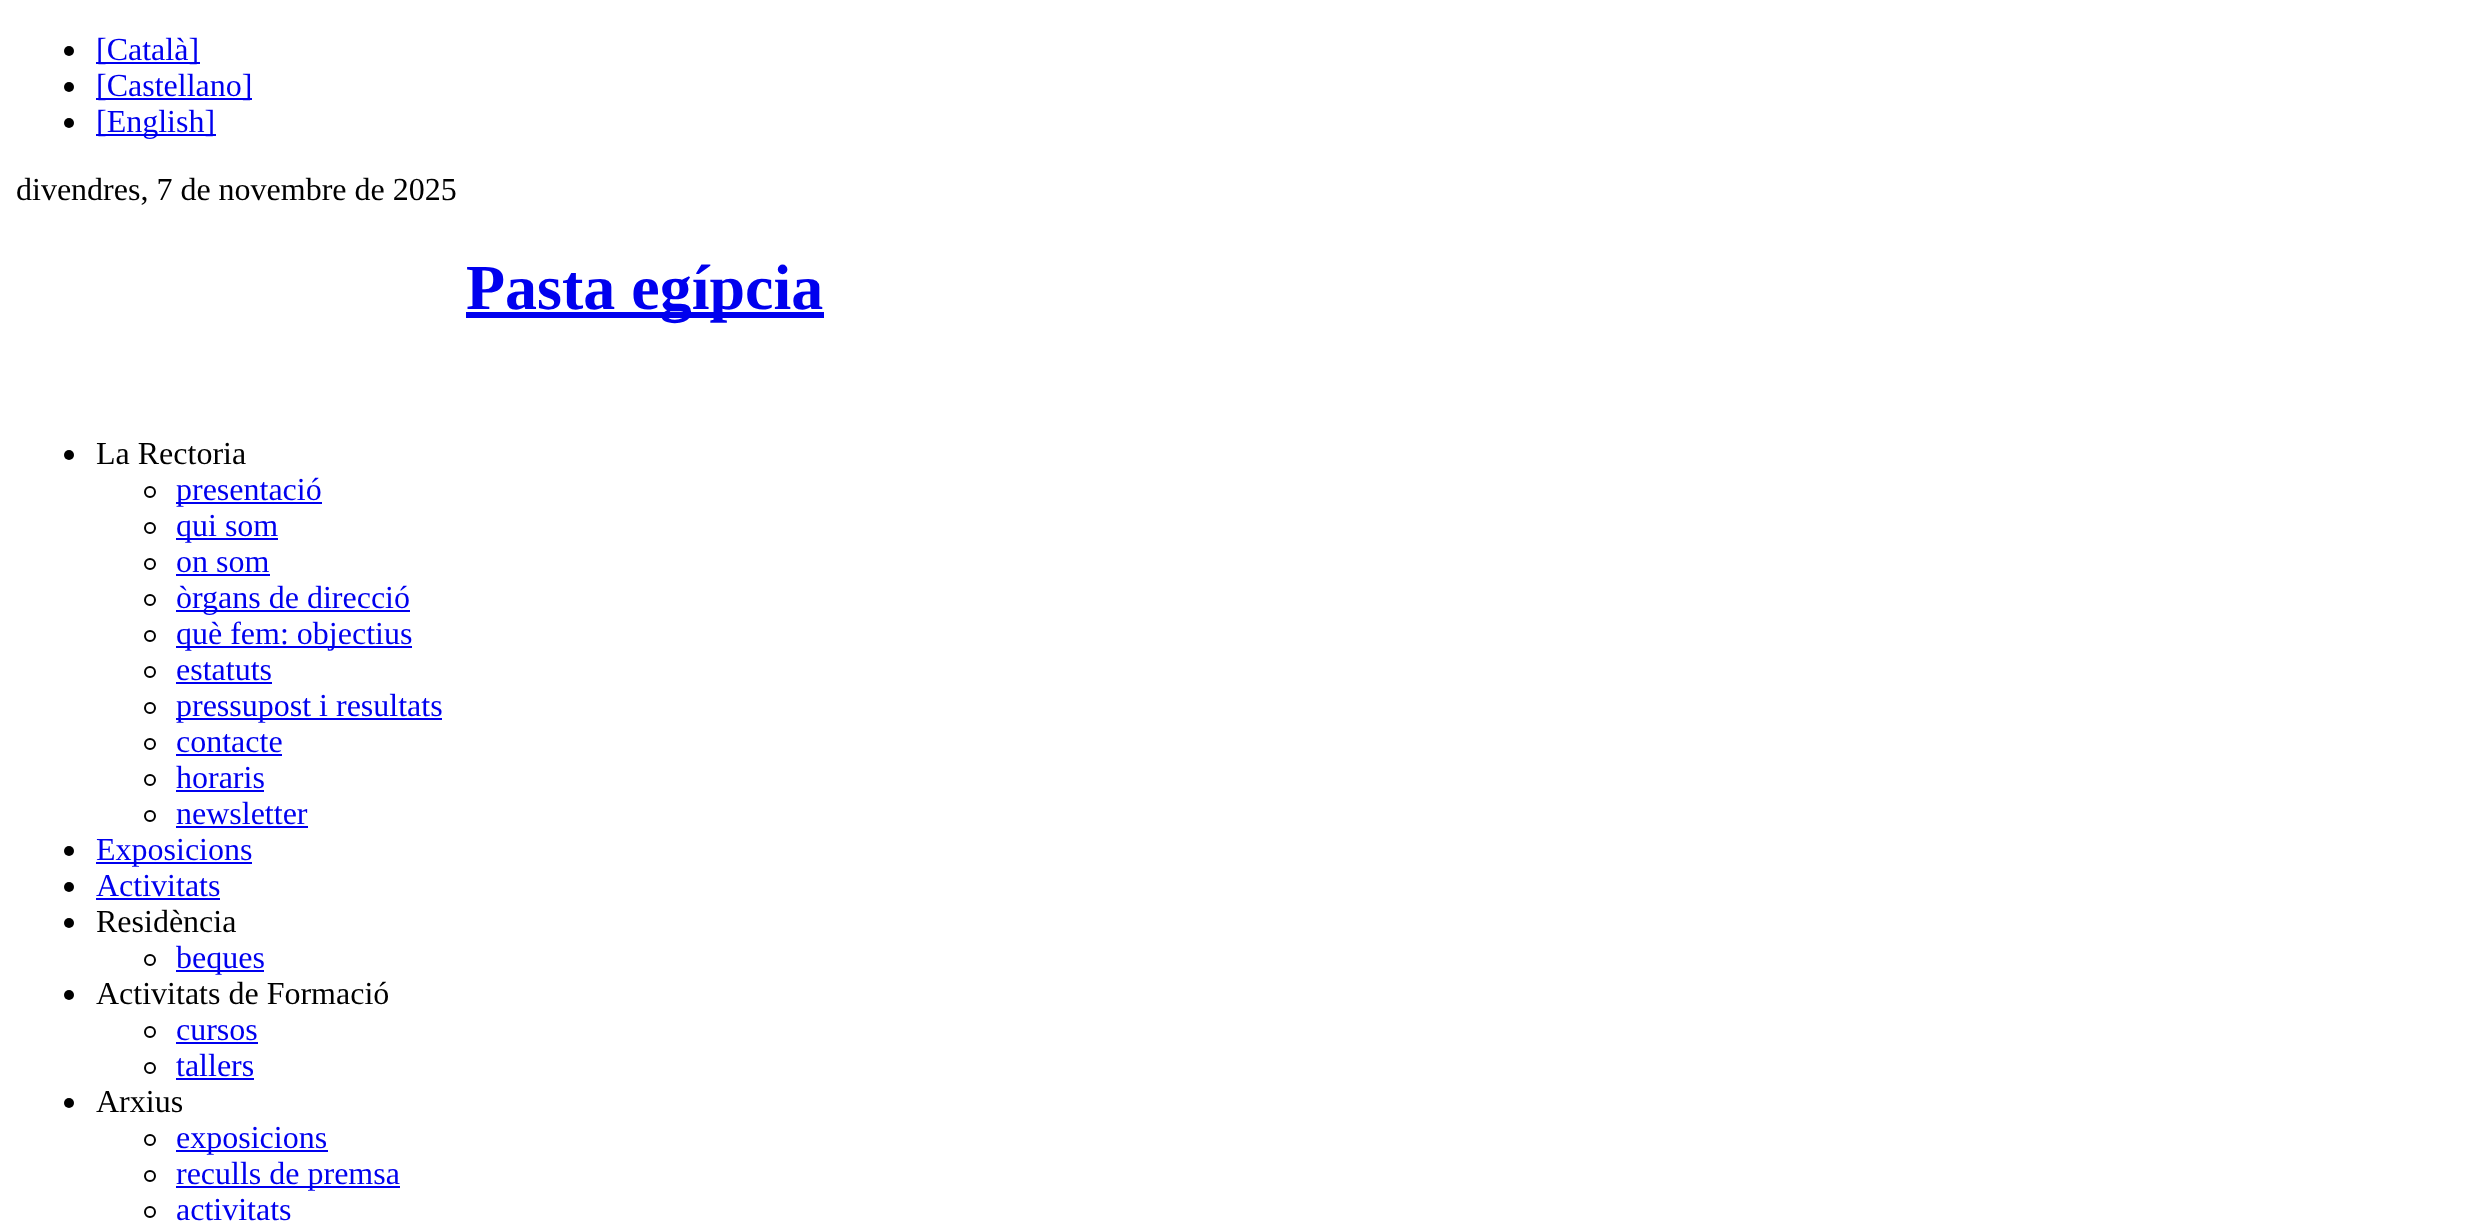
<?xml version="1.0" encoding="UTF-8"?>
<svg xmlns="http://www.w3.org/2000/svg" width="2477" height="1221">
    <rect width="100%" height="100%" fill="#FFFFFF"/>
    <circle cx="69" cy="51" r="5" fill="#000000"/>
    <rect x="96" y="62" width="104" height="2" fill="#0000EE"/>
    <text x="96" y="60" font-family="Liberation Serif" font-size="32" fill="#0000EE">[Català]</text>
    <circle cx="69" cy="87" r="5" fill="#000000"/>
    <rect x="96" y="98" width="156" height="2" fill="#0000EE"/>
    <text x="96" y="96" font-family="Liberation Serif" font-size="32" fill="#0000EE">[Castellano]</text>
    <circle cx="69" cy="123" r="5" fill="#000000"/>
    <rect x="96" y="134" width="120" height="2" fill="#0000EE"/>
    <text x="96" y="132" font-family="Liberation Serif" font-size="32" fill="#0000EE">[English]</text>
    <text x="16" y="200" font-family="Liberation Serif" font-size="32" fill="#000000">divendres, 7 de novembre de 2025</text>
    <rect x="466" y="312" width="358" height="6" fill="#0000EE"/>
    <text x="466" y="309" font-family="Liberation Serif" font-size="64" font-weight="700" fill="#0000EE">Pasta egípcia</text>
    <circle cx="69" cy="455" r="5" fill="#000000"/>
    <text x="96" y="464" font-family="Liberation Serif" font-size="32" fill="#000000">La Rectoria</text>
    <circle cx="150" cy="492" r="5" fill="none" stroke="#000000" stroke-width="2"/>
    <rect x="176" y="502" width="146" height="2" fill="#0000EE"/>
    <text x="176" y="500" font-family="Liberation Serif" font-size="32" fill="#0000EE">presentació</text>
    <circle cx="150" cy="528" r="5" fill="none" stroke="#000000" stroke-width="2"/>
    <rect x="176" y="538" width="102" height="2" fill="#0000EE"/>
    <text x="176" y="536" font-family="Liberation Serif" font-size="32" fill="#0000EE">qui som</text>
    <circle cx="150" cy="564" r="5" fill="none" stroke="#000000" stroke-width="2"/>
    <text x="176" y="572" font-family="Liberation Serif" font-size="32" fill="#0000EE">on som</text>
    <rect x="176" y="574" width="94" height="2" fill="#0000EE"/>
    <circle cx="150" cy="600" r="5" fill="none" stroke="#000000" stroke-width="2"/>
    <rect x="176" y="610" width="234" height="2" fill="#0000EE"/>
    <text x="176" y="608" font-family="Liberation Serif" font-size="32" fill="#0000EE">òrgans de direcció</text>
    <circle cx="150" cy="636" r="5" fill="none" stroke="#000000" stroke-width="2"/>
    <rect x="176" y="646" width="236" height="2" fill="#0000EE"/>
    <text x="176" y="644" font-family="Liberation Serif" font-size="32" fill="#0000EE">què fem: objectius</text>
    <circle cx="150" cy="672" r="5" fill="none" stroke="#000000" stroke-width="2"/>
    <text x="176" y="680" font-family="Liberation Serif" font-size="32" fill="#0000EE">estatuts</text>
    <rect x="176" y="682" width="96" height="2" fill="#0000EE"/>
    <circle cx="150" cy="708" r="5" fill="none" stroke="#000000" stroke-width="2"/>
    <rect x="176" y="718" width="266" height="2" fill="#0000EE"/>
    <text x="176" y="716" font-family="Liberation Serif" font-size="32" fill="#0000EE">pressupost i resultats</text>
    <circle cx="150" cy="744" r="5" fill="none" stroke="#000000" stroke-width="2"/>
    <text x="176" y="752" font-family="Liberation Serif" font-size="32" fill="#0000EE">contacte</text>
    <rect x="176" y="754" width="106" height="2" fill="#0000EE"/>
    <circle cx="150" cy="780" r="5" fill="none" stroke="#000000" stroke-width="2"/>
    <text x="176" y="788" font-family="Liberation Serif" font-size="32" fill="#0000EE">horaris</text>
    <rect x="176" y="790" width="88" height="2" fill="#0000EE"/>
    <circle cx="150" cy="816" r="5" fill="none" stroke="#000000" stroke-width="2"/>
    <text x="176" y="824" font-family="Liberation Serif" font-size="32" fill="#0000EE">newsletter</text>
    <rect x="176" y="826" width="132" height="2" fill="#0000EE"/>
    <circle cx="69" cy="851" r="5" fill="#000000"/>
    <rect x="96" y="862" width="156" height="2" fill="#0000EE"/>
    <text x="96" y="860" font-family="Liberation Serif" font-size="32" fill="#0000EE">Exposicions</text>
    <circle cx="69" cy="887" r="5" fill="#000000"/>
    <text x="96" y="896" font-family="Liberation Serif" font-size="32" fill="#0000EE">Activitats</text>
    <rect x="96" y="898" width="124" height="2" fill="#0000EE"/>
    <circle cx="69" cy="923" r="5" fill="#000000"/>
    <text x="96" y="932" font-family="Liberation Serif" font-size="32" fill="#000000">Residència</text>
    <circle cx="150" cy="960" r="5" fill="none" stroke="#000000" stroke-width="2"/>
    <rect x="176" y="970" width="88" height="2" fill="#0000EE"/>
    <text x="176" y="968" font-family="Liberation Serif" font-size="32" fill="#0000EE">beques</text>
    <circle cx="69" cy="995" r="5" fill="#000000"/>
    <text x="96" y="1004" font-family="Liberation Serif" font-size="32" fill="#000000">Activitats de Formació</text>
    <circle cx="150" cy="1032" r="5" fill="none" stroke="#000000" stroke-width="2"/>
    <text x="176" y="1040" font-family="Liberation Serif" font-size="32" fill="#0000EE">cursos</text>
    <rect x="176" y="1042" width="82" height="2" fill="#0000EE"/>
    <circle cx="150" cy="1068" r="5" fill="none" stroke="#000000" stroke-width="2"/>
    <text x="176" y="1076" font-family="Liberation Serif" font-size="32" fill="#0000EE">tallers</text>
    <rect x="176" y="1078" width="78" height="2" fill="#0000EE"/>
    <circle cx="69" cy="1103" r="5" fill="#000000"/>
    <text x="96" y="1112" font-family="Liberation Serif" font-size="32" fill="#000000">Arxius</text>
    <circle cx="150" cy="1140" r="5" fill="none" stroke="#000000" stroke-width="2"/>
    <rect x="176" y="1150" width="152" height="2" fill="#0000EE"/>
    <text x="176" y="1148" font-family="Liberation Serif" font-size="32" fill="#0000EE">exposicions</text>
    <circle cx="150" cy="1176" r="5" fill="none" stroke="#000000" stroke-width="2"/>
    <rect x="176" y="1186" width="224" height="2" fill="#0000EE"/>
    <text x="176" y="1184" font-family="Liberation Serif" font-size="32" fill="#0000EE">reculls de premsa</text>
    <circle cx="150" cy="1212" r="5" fill="none" stroke="#000000" stroke-width="2"/>
    <text x="176" y="1220" font-family="Liberation Serif" font-size="32" fill="#0000EE">activitats</text>
</svg>
